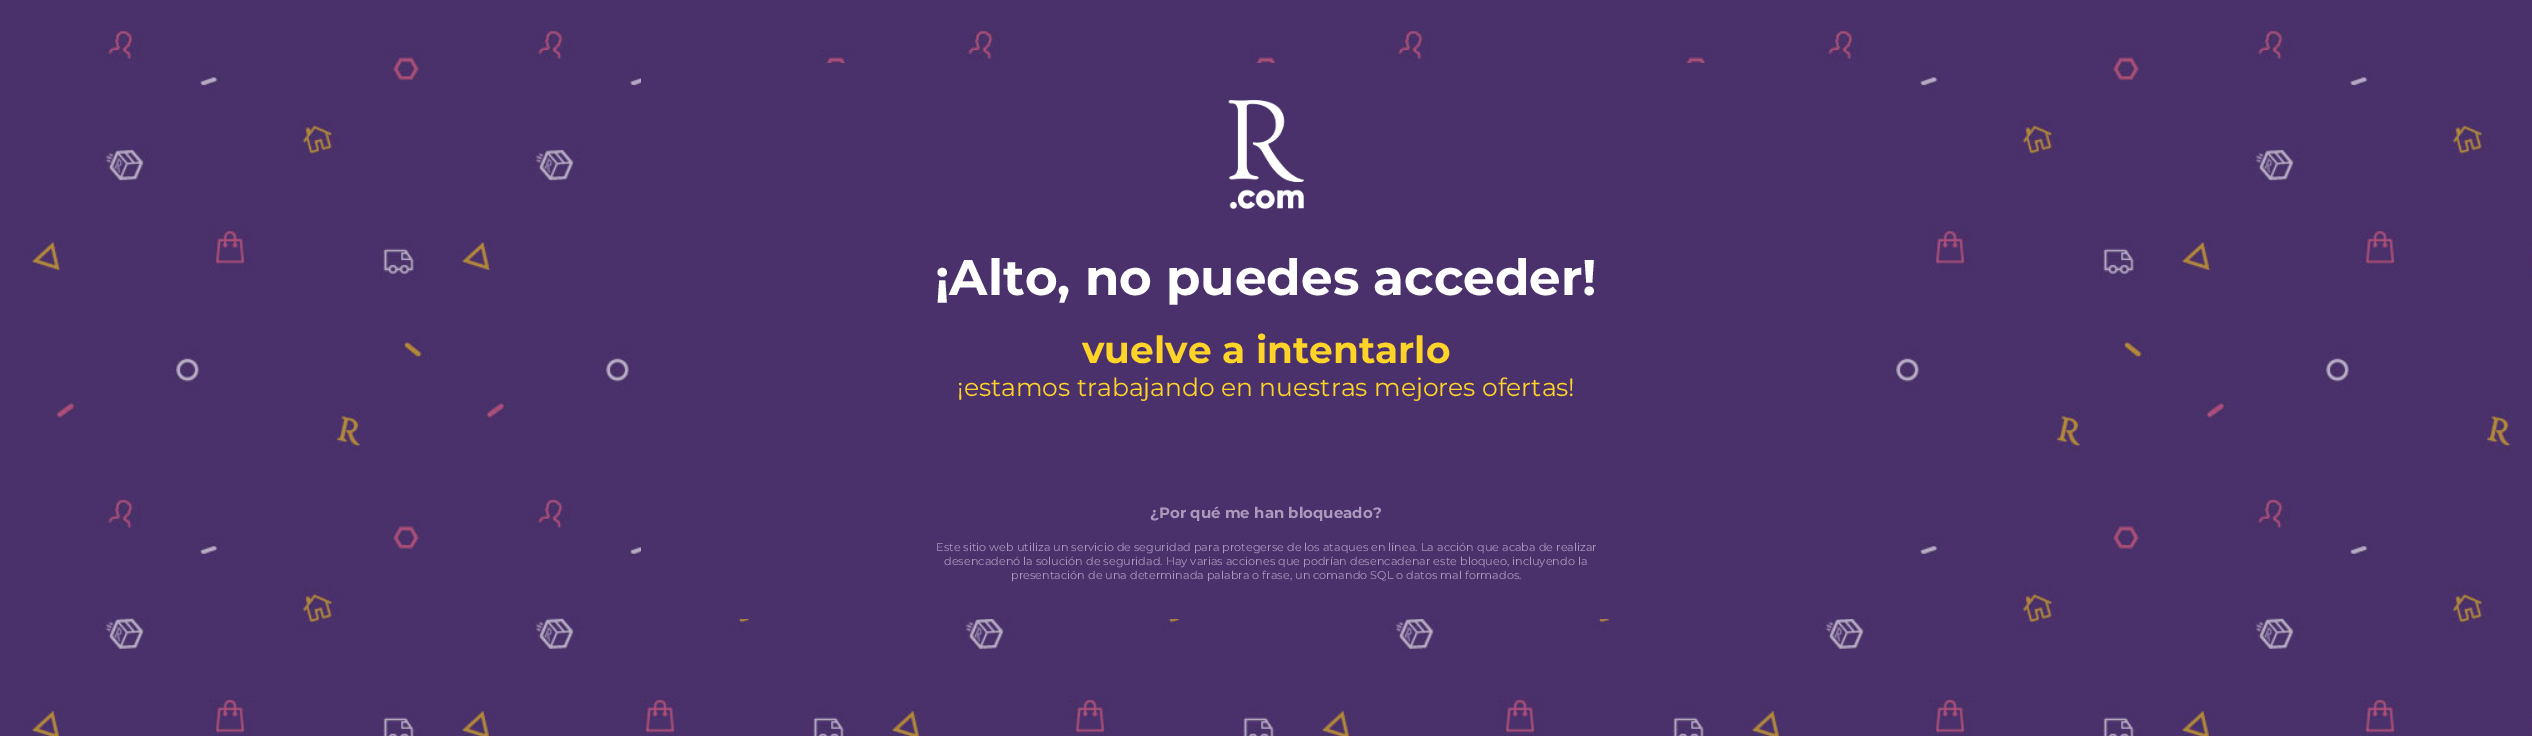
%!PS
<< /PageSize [2532 736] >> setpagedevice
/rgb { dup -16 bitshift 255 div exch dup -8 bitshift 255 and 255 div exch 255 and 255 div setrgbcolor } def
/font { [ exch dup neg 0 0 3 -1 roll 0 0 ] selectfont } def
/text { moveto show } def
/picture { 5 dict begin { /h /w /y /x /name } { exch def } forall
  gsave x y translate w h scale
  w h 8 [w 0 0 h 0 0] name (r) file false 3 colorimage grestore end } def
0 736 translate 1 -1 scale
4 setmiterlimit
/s1 { /Montserrat-Thin 50 font 16#FFFFFF rgb } def
/s2 { /Montserrat-Thin 37.5 font 16#FFD429 rgb } def
/s3 { /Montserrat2-Thin 25 font 16#FFD429 rgb } def
/s4 { /Montserrat-Thin 15 font 16#AC9ABD rgb } def
/s5 { /Montserrat2-Thin 11.25 font 16#AC9ABD rgb } def
16#FFFFFF rgb
0 0 2532 736 rectfill
(pic1.raw) 0 0 2532 736 picture
16#4A316B rgb
641 63 1250 556 rectfill
(pic2.raw) 1228 100 76 109 picture
s1
(¡Alto, no puedes acceder!) 935 295 text
s2
(vuelve a intentarlo) 1082 363 text
s3
(¡estamos trabajando en nuestras mejores ofertas!) 957 396 text
s4
(¿Por qué me han bloqueado?) 1150 518 text
s5
(Este sitio web utiliza un servicio de seguridad para protegerse de los ataques en línea. La acción que acaba de realizar) 936 551 text
(desencadenó la solución de seguridad. Hay varias acciones que podrían desencadenar este bloqueo, incluyendo la) 944 565 text
(presentación de una determinada palabra o frase, un comando SQL o datos mal formados.) 1011 579 text
showpage
